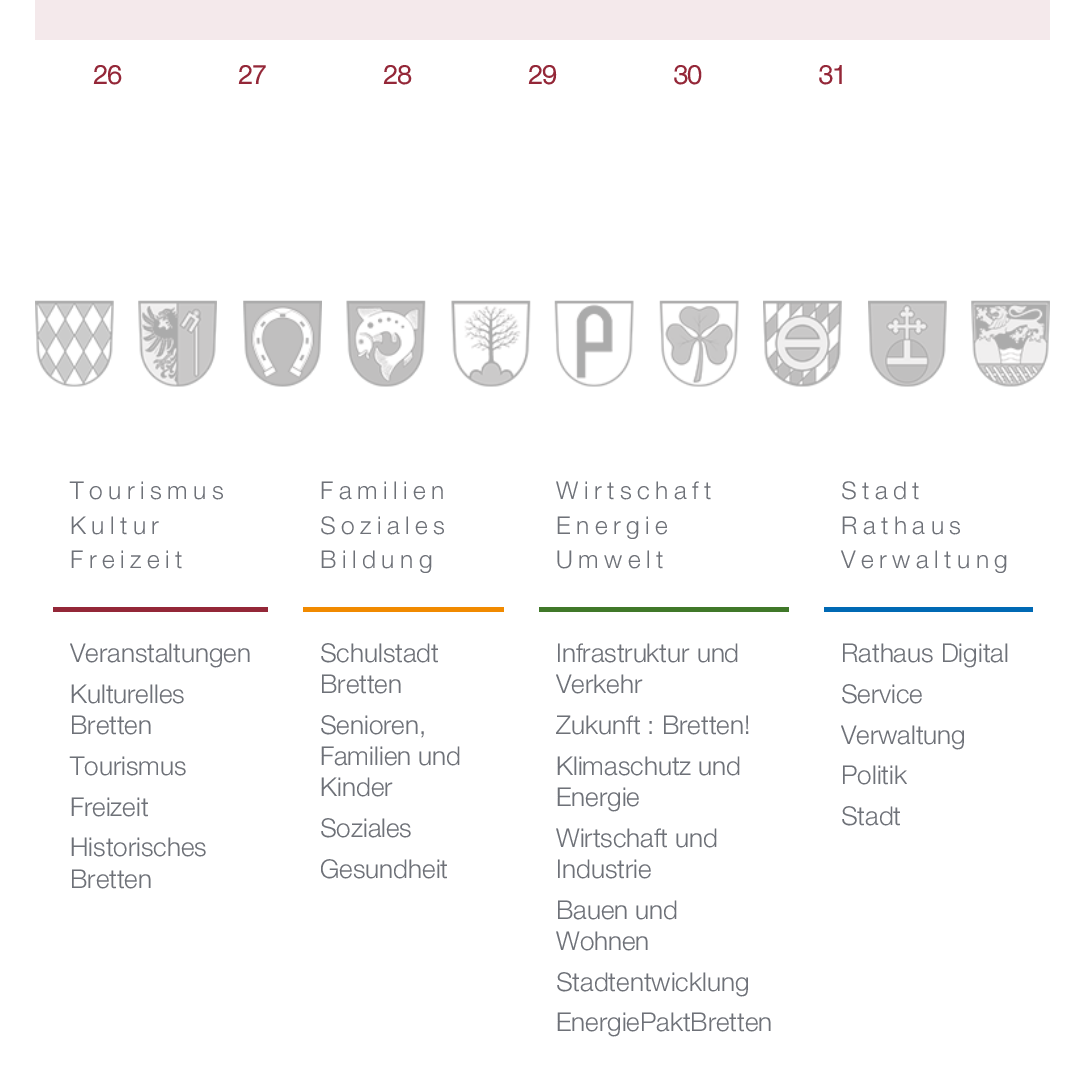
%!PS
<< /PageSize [1084 1067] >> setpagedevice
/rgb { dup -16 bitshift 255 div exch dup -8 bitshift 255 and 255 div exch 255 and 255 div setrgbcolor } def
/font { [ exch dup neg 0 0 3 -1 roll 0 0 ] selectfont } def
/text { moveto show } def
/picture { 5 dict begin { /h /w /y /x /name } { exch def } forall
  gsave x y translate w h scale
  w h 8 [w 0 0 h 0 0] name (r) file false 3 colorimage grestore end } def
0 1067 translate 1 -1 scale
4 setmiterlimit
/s1 { /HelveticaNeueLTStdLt-Bold 26 font 16#942738 rgb } def
/s2 { /HelveticaNeueLTStdLt-Light 26 font 16#6E7178 rgb } def
16#FFFFFF rgb
0 0 1084 1067 rectfill
16#F4E9EB rgb
35 0 1015 40 rectfill
s1
(26) 93 84 text
(27) 238 84 text
(28) 383 84 text
(29) 528 84 text
(30) 673 84 text
(31) 818 84 text
(pic1.raw) 35 300 79 87 picture
(pic2.raw) 138 300 79 87 picture
(pic3.raw) 243 300 79 87 picture
(pic4.raw) 346 300 80 87 picture
(pic5.raw) 451 300 80 87 picture
(pic6.raw) 554 300 80 87 picture
(pic7.raw) 659 300 80 87 picture
(pic8.raw) 763 300 79 87 picture
(pic9.raw) 868 300 79 87 picture
(pic10.raw) 971 300 79 87 picture
53 607 215 5 rectfill
/HelveticaNeueLTStdLt-Light 24.5 font
16#6E7178 rgb
70 499 moveto 5.5 0 (Tourismus) ashow
70 534 moveto 5.5 0 (Kultur) ashow
70 568 moveto 5.5 0 (Freizeit) ashow
s2
(Veranstaltungen) 70 662 text
(Kulturelles) 70 703 text
(Bretten) 70 734 text
(Tourismus) 70 775 text
(Freizeit) 70 816 text
(Historisches) 70 856 text
(Bretten) 70 888 text
16#F18A00 rgb
303 607 201 5 rectfill
/HelveticaNeueLTStdLt-Light 24.5 font
16#6E7178 rgb
320 499 moveto 5.5 0 (Familien) ashow
320 534 moveto 5.5 0 (Soziales) ashow
320 568 moveto 5.5 0 (Bildung) ashow
s2
(Schulstadt) 320 662 text
(Bretten) 320 693 text
(Senioren,) 320 734 text
(Familien und) 320 765 text
(Kinder) 320 796 text
(Soziales) 320 837 text
(Gesundheit) 320 878 text
16#407829 rgb
539 607 250 5 rectfill
/HelveticaNeueLTStdLt-Light 24.5 font
16#6E7178 rgb
556 499 moveto 5.5 0 (Wirtschaft) ashow
556 534 moveto 5.5 0 (Energie) ashow
556 568 moveto 5.5 0 (Umwelt) ashow
s2
(Infrastruktur und) 556 662 text
(Verkehr) 556 693 text
(Zukunft : Bretten!) 556 734 text
(Klimaschutz und) 556 775 text
(Energie) 556 806 text
(Wirtschaft und) 556 847 text
(Industrie) 556 878 text
(Bauen und) 556 919 text
(Wohnen) 556 950 text
(Stadtentwicklung) 556 991 text
(EnergiePaktBretten) 556 1031 text
16#0069B4 rgb
824 607 209 5 rectfill
/HelveticaNeueLTStdLt-Light 24.5 font
16#6E7178 rgb
841 499 moveto 5.5 0 (Stadt) ashow
841 534 moveto 5.5 0 (Rathaus) ashow
841 568 moveto 5.5 0 (Verwaltung) ashow
s2
(Rathaus Digital) 841 662 text
(Service) 841 703 text
(Verwaltung) 841 744 text
(Politik) 841 784 text
(Stadt) 841 825 text
showpage
